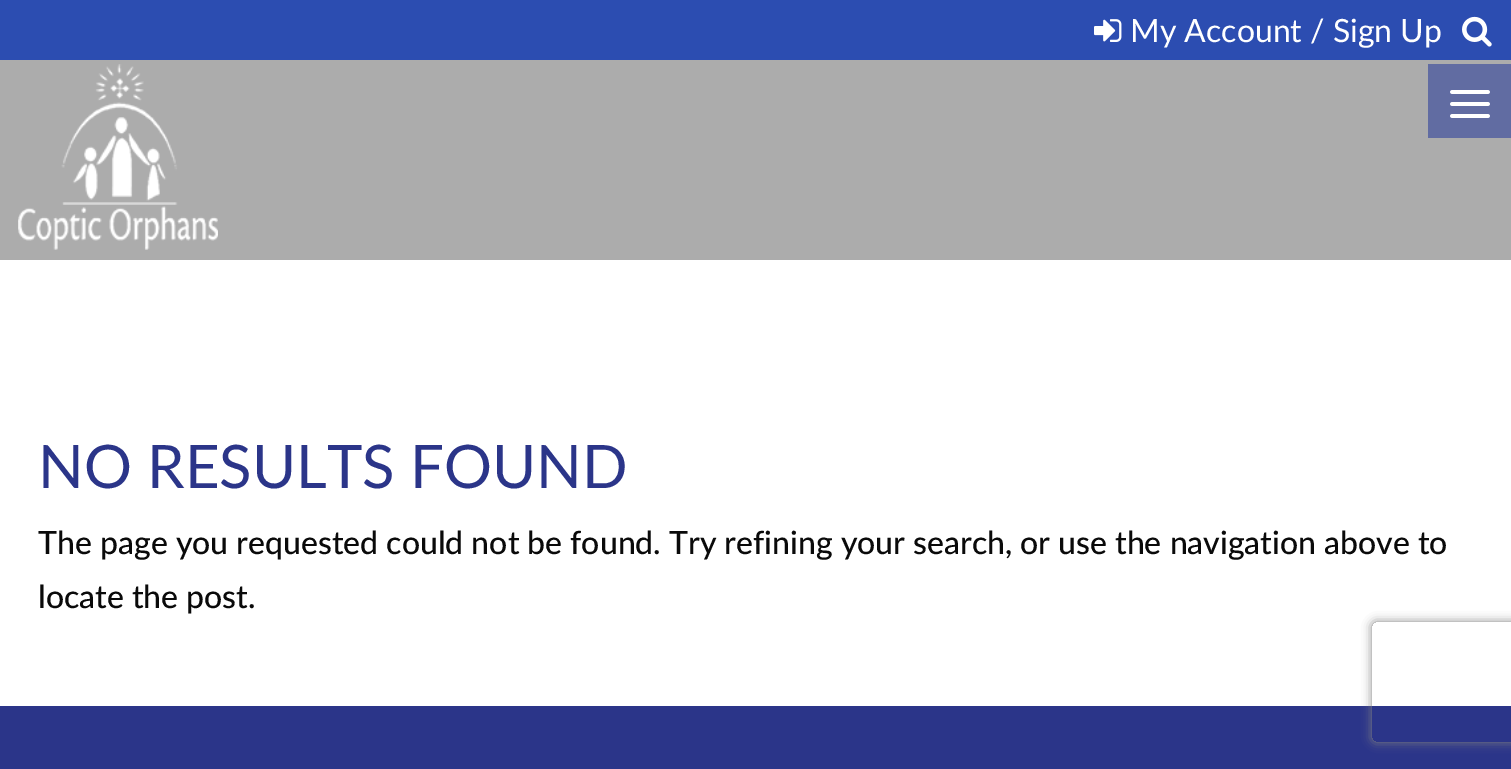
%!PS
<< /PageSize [1511 769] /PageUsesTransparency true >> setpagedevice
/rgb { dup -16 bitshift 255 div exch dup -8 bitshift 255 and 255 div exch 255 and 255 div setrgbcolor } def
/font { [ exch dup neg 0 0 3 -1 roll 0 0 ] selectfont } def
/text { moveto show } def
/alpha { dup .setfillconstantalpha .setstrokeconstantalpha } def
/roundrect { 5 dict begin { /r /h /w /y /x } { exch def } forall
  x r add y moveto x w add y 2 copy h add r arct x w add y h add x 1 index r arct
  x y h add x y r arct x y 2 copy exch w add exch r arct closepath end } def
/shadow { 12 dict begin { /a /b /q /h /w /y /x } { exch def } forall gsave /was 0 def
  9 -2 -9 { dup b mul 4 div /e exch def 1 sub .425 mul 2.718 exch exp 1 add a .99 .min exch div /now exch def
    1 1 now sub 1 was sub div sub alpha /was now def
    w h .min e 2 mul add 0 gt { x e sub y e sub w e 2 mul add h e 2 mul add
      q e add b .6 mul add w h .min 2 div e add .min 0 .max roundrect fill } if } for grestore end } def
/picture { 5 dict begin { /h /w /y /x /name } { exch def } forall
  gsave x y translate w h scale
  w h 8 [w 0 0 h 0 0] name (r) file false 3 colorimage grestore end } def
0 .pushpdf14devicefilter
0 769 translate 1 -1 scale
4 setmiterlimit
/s1 { /Lato-Regular 32 font 16#FFFFFF rgb } def
/s2 { /Lato-Regular 60 font 16#2B3589 rgb } def
/s3 { /Lato-Medium 32 font 16#0A0A0A rgb } def
16#FFFFFF rgb
0 0 1511 769 rectfill
16#2C4DB1 rgb
0 0 1511 60 rectfill
(pic1.raw) 1094 19 28 23 picture
s1
(My Account / Sign Up) 1130 42 text
(pic2.raw) 1462 16 30 31 picture
16#ACACAC rgb
0 60 1511 200 rectfill
(pic3.raw) 18 64 200 186 picture
16#616CA2 rgb
1428 64 83 74 rectfill
(pic4.raw) 1450 90 40 28 picture
s2
(NO RESULTS FOUND) 38 488 text
s3
(The page you requested could not be found. Try refining your search, or use the navigation above to) 38 554 text
(locate the post.) 38 608 text
16#2B3589 rgb
0 706 1511 63 rectfill
gsave
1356 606 moveto 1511 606 lineto 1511 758 lineto 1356 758 lineto closepath 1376 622 moveto 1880 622 lineto 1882 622 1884 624 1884 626 curveto 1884 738 lineto 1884 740 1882 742 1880 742 curveto 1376 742 lineto 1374 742 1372 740 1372 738 curveto 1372 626 lineto 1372 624 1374 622 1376 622 curveto closepath eoclip newpath
16#808080 rgb
1372 622 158 120 4 5 1 shadow
grestore
.poppdf14devicefilter showpage
